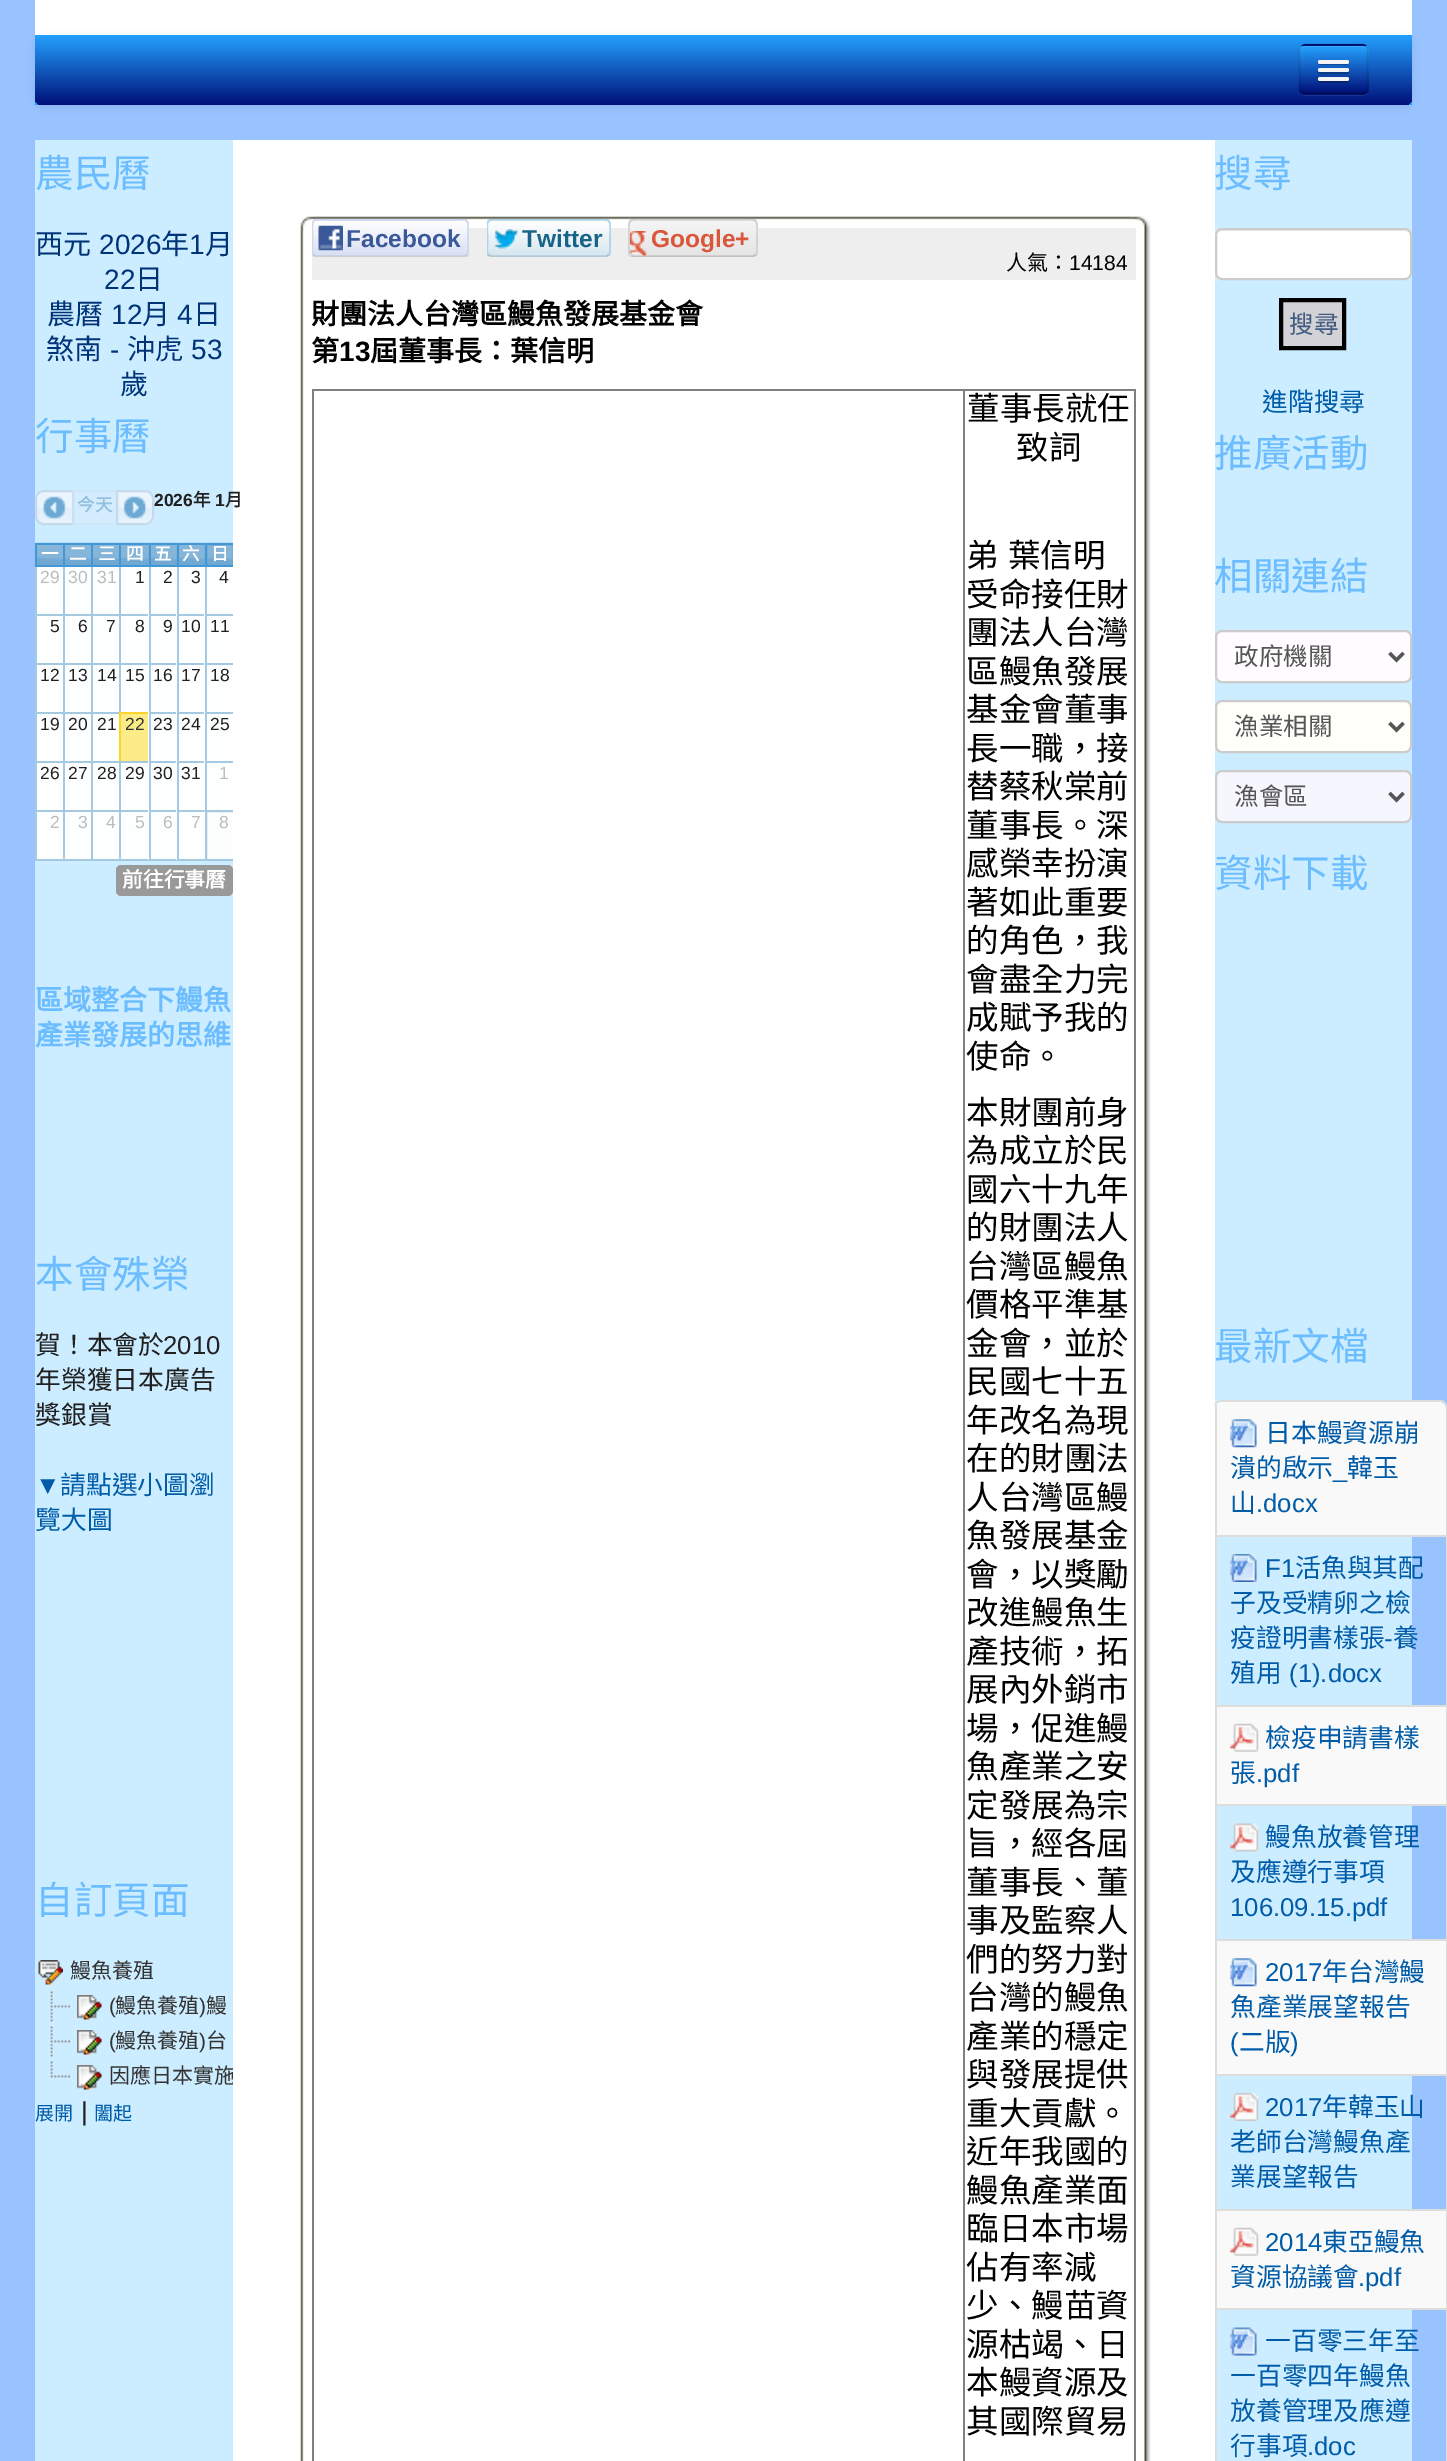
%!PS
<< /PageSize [1447 2461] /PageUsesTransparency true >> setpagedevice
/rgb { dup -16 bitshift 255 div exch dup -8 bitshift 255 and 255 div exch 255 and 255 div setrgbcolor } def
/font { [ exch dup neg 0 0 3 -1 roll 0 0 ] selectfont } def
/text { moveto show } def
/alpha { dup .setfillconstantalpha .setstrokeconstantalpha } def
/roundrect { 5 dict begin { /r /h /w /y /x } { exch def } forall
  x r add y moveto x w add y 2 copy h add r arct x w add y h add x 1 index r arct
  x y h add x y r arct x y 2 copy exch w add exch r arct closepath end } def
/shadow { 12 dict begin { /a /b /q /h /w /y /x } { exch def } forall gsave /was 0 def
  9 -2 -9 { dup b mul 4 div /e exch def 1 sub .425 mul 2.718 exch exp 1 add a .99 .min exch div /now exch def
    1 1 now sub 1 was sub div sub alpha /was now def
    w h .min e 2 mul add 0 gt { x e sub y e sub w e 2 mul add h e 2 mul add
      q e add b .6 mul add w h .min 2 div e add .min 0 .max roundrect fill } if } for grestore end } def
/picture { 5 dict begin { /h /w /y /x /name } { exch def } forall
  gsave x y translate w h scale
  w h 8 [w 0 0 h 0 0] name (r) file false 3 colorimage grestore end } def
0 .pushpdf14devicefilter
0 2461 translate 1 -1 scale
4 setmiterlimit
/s1 { /NotoSansCJKTC-Regular 38.5 font 16#6BBDFF rgb } def
/s2 { /NotoSansCJKTC-Regular 28 font 16#003377 rgb } def
/s3 { /LiberationSans-Regular 28 font 16#003377 rgb } def
/s4 { /NotoSansCJKTC-Bold 17.5 font 16#95C0DD rgb } def
/s5 { /LiberationSans-Bold 17.5 font 16#202020 rgb } def
/s6 { /NotoSansCJKTC-Bold 17.5 font 16#202020 rgb } def
/s7 { /NotoSansCJKTC-Bold 17.5 font 16#FFFFFF rgb } def
/s8 { /LiberationSans-Regular 17.5 font 16#BBBCBC rgb } def
/s9 { /LiberationSans-Regular 17.5 font 16#202020 rgb } def
/s10 { /LiberationSans-Regular 17.5 font 16#333333 rgb } def
/s11 { /NotoSansCJKTC-Bold 20.75 font 16#FFFFFF rgb } def
/s12 { /NotoSansCJKTC-Bold 28 font 16#6BBDFF rgb } def
/s13 { /NotoSansCJKTC-Regular 25.75 font 16#202020 rgb } def
/s14 { /LiberationSans-Regular 25.75 font 16#202020 rgb } def
/s15 { /LiberationSans-Regular 25.75 font 16#005CA8 rgb } def
/s16 { /NotoSansCJKTC-Regular 25.75 font 16#005CA8 rgb } def
/s17 { /NotoSansCJKTC-Regular 21 font 16#333333 rgb } def
/s18 { /LiberationSans-Regular 21 font 16#333333 rgb } def
/s19 { /NotoSansCJKTC-Regular 19 font 16#005CA8 rgb } def
/s20 { /LiberationSans-Bold 24.5 font 16#3B5998 rgb } def
/s21 { /LiberationSans-Bold 24.5 font 16#186487 rgb } def
/s22 { /LiberationSans-Bold 24.5 font 16#DA573B rgb } def
/s23 { /NotoSansCJKTC-Regular 21 font 16#000000 rgb } def
/s24 { /LiberationSans-Regular 21 font 16#000000 rgb } def
/s25 { /NotoSansCJKTC-Bold 28 font 16#000000 rgb } def
/s26 { /LiberationSans-Bold 28 font 16#000000 rgb } def
/s27 { /NotoSansCJKTC-Regular 32.5 font 16#000000 rgb } def
/s28 { /NotoSansCJKTC-Regular 24.5 font 16#405A80 rgb } def
/s29 { /NotoSansCJKTC-Regular 24.5 font 16#555555 rgb } def
16#98C3FF rgb
0 0 1447 2461 rectfill
16#FFFFFF rgb
35 0 1377 35 rectfill
16#24A1FF rgb
35 35 1377 70 rectfill
16#000000 rgb
35 37 1377 70 7 3.5 0.07 shadow
gsave 35 35 1377 70 7 roundrect clip newpath
<< /ShadingType 2 /ColorSpace /DeviceRGB /Coords [724 35 724 105] /Extend [true true] /Function << /FunctionType 2 /Domain [0 1] /C0 [0.141 0.631 1] /C1 [0 0.063 0.471] /N 1 >> >> shfill grestore
0.07 alpha
16#FFFFFF rgb
1299 90 moveto 1300 94 1303 96 1306 96 curveto 1362 96 lineto 1366 96 1369 93 1369 89 curveto 1369 53 lineto 1368 50 lineto 1368 81 lineto 1368 96 1366 94 1352 94 curveto 1315 94 lineto 1310 94 1302 96 1299 90 curveto closepath fill
1 alpha
16#001078 rgb
1299 44 70 51 7 roundrect fill
gsave
1299 44 70 51 7 roundrect clip newpath
gsave 1299 46 moveto 1369 46 lineto 1369 93 lineto 1299 93 lineto closepath clip newpath
<< /ShadingType 2 /ColorSpace /DeviceRGB /Coords [1334 46 1334 93] /Extend [true true] /Function << /FunctionType 2 /Domain [0 1] /C0 [0.141 0.631 1] /C1 [0 0.063 0.471] /N 1 >> >> shfill grestore
grestore
0.1 alpha
16#FFFFFF rgb
1306 47 moveto 1362 47 lineto 1364 47 1367 50 1367 52 curveto 1367 44 1358 46 1352 46 curveto 1314 46 lineto 1309 46 1300 44 1300 52 curveto 1300 50 1303 47 1306 47 curveto closepath fill
1 alpha
16#000C5A rgb
1.8 setlinewidth
1366 92 moveto 1364.5 93 1363 93.5 1361.5 93.5 curveto 1305.5 93.5 lineto 1304 93.5 1302.5 93 1301 92 curveto stroke
0.1 alpha
16#000000 rgb
1301 92 moveto 1300 90.5 1299.5 89 1299.5 87.5 curveto 1299.5 51 lineto 1299.5 49 1300 47.5 1301 46.5 curveto 1302.5 45.5 1304 44.5 1305.5 44.5 curveto 1361.5 44.5 lineto 1363 44.5 1364.5 45.5 1366 46.5 curveto 1367 47.5 1367.5 49 1367.5 51 curveto 1367.5 87.5 lineto 1367.5 89 1367 90.5 1366 92 curveto stroke
0.25 alpha
1318 62.5 moveto 1317 66 1323.5 65 1324.5 65 curveto 1342.5 65 lineto 1343.5 65 1350 66 1349 62.5 curveto 1347.5 63 lineto 1319.5 63 lineto closepath fill
1 alpha
16#F5F5F5 rgb
1318 60 31 4 2 roundrect fill
0.25 alpha
16#000000 rgb
1318 71 moveto 1316.5 75 1323.5 74 1324.5 74 curveto 1342.5 74 lineto 1343.5 74 1350.5 75 1349 71 curveto 1347.5 71.5 lineto 1319.5 71.5 lineto closepath fill
1 alpha
16#F5F5F5 rgb
1318 68 31 4 2 roundrect fill
0.25 alpha
16#000000 rgb
1318.5 80 moveto 1316 84 1324 83 1324.5 83 curveto 1342.5 83 lineto 1343 83 1351 84 1348.5 80 curveto 1347.5 80.5 lineto 1319.5 80.5 lineto closepath fill
1 alpha
16#F5F5F5 rgb
1318 77 31 4 2 roundrect fill
16#FFFFFF rgb
233 140 982 2321 rectfill
16#CCECFF rgb
35 140 198 2321 rectfill
s1
(農民曆) 35 187 text
s2
(西元) 35 254 text
s3
(2026) 99 254 text
s2
(年) 161 254 text
s3
(1) 189 254 text
s2
(月) 205 254 text
s3
(22) 104 289 text
s2
(日) 135 289 text
(農曆) 47 324 text
s3
(12) 111 324 text
s2
(月) 142 324 text
s3
(4) 177 324 text
s2
(日) 193 324 text
(煞南) 46 359 text
s3
(-) 110 359 text
s2
(沖虎) 127 359 text
s3
(53) 191 359 text
s2
(歲) 120 394 text
s1
(行事曆) 35 450 text
(pic1.raw) 35 490 37 35 picture
16#C5DBEC rgb
2 setlinewidth
44 491 moveto 73 491 lineto 73 524 lineto 44 524 lineto 39.5 524 36 520.5 36 516 curveto 36 499 lineto 36 494.5 39.5 491 44 491 curveto closepath stroke
(pic2.raw) 43 496 23 23 picture
0.35 alpha
16#DFEFFC rgb
72 490 44 35 rectfill
16#C5DBEC rgb
73 491 43 33 rectstroke
1 alpha
s4
(今天) 77 511 text
(pic3.raw) 115 490 39 35 picture
16#C5DBEC rgb
117 491 moveto 145 491 lineto 149.5 491 153 494.5 153 499 curveto 153 516 lineto 153 520.5 149.5 524 145 524 curveto 117 524 lineto closepath stroke
(pic4.raw) 123 496 23 23 picture
s5
(2026) 154 506 text
s6
(年) 193 506 text
s5
(1) 215 506 text
s6
(月) 225 506 text
(pic5.raw) 35 542 28 23 picture
16#4297D7 rgb
35 543 28 2 rectfill
35 565 114 2 rectfill
35 543 2 24 rectfill
s7
(一) 41 560 text
(pic5.raw) 63 542 28 23 picture
16#4297D7 rgb
63 543 28 2 rectfill
63 543 2 24 rectfill
s7
(二) 69 560 text
(pic5.raw) 91 542 28 23 picture
16#4297D7 rgb
91 543 28 2 rectfill
91 543 2 24 rectfill
s7
(三) 98 560 text
(pic6.raw) 119 542 30 23 picture
16#4297D7 rgb
119 543 30 2 rectfill
119 543 2 24 rectfill
s7
(四) 126 560 text
(pic7.raw) 148 542 29 25 picture
16#4297D7 rgb
149 543 28 2 rectfill
149 565 28 2 rectfill
149 543 2 24 rectfill
s7
(五) 154 560 text
(pic7.raw) 176 542 29 25 picture
16#4297D7 rgb
177 543 28 2 rectfill
177 565 28 2 rectfill
177 543 2 24 rectfill
s7
(六) 182 560 text
(pic8.raw) 204 542 29 25 picture
gsave
35 543 198 318 rectclip
16#4297D7 rgb
206 544 28 22 rectstroke
grestore
(日) 211 560 text
16#FDFEFE rgb
37 567 26 47 rectfill
16#A6C9E2 rgb
35 567 2 47 rectfill
s8
(29) 40 583 text
16#FDFEFE rgb
65 567 26 47 rectfill
16#A6C9E2 rgb
63 567 2 47 rectfill
s8
(30) 68 583 text
16#FDFEFE rgb
93 567 26 47 rectfill
16#A6C9E2 rgb
91 567 2 47 rectfill
s8
(31) 97 583 text
16#FDFEFE rgb
121 567 28 47 rectfill
16#A6C9E2 rgb
119 567 2 47 rectfill
s9
(1) 135 583 text
16#FDFEFE rgb
151 567 26 47 rectfill
16#A6C9E2 rgb
149 567 2 47 rectfill
s9
(2) 163 583 text
16#FDFEFE rgb
179 567 26 47 rectfill
16#A6C9E2 rgb
177 567 2 47 rectfill
s9
(3) 191 583 text
16#FDFEFE rgb
207 567 26 47 rectfill
16#A6C9E2 rgb
205 567 2 47 rectfill
s9
(4) 219 583 text
16#FDFEFE rgb
37 616 26 47 rectfill
16#A6C9E2 rgb
35 614 114 2 rectfill
35 614 2 49 rectfill
s9
(5) 50 632 text
16#FDFEFE rgb
65 616 26 47 rectfill
16#A6C9E2 rgb
63 614 2 49 rectfill
s9
(6) 78 632 text
16#FDFEFE rgb
93 616 26 47 rectfill
16#A6C9E2 rgb
91 614 2 49 rectfill
s9
(7) 106 632 text
16#FDFEFE rgb
121 616 27 47 rectfill
16#A6C9E2 rgb
119 614 2 49 rectfill
s9
(8) 135 632 text
16#FDFEFE rgb
148 614 28 49 rectfill
16#A6C9E2 rgb
149 614 28 2 rectfill
149 614 2 49 rectfill
s9
(9) 163 632 text
16#FDFEFE rgb
176 614 28 49 rectfill
16#A6C9E2 rgb
177 614 28 2 rectfill
177 614 2 49 rectfill
s9
(10) 181 632 text
16#FDFEFE rgb
204 614 29 49 rectfill
16#A6C9E2 rgb
205 614 28 2 rectfill
205 614 2 49 rectfill
s9
(11) 210 632 text
16#FDFEFE rgb
37 665 26 47 rectfill
16#A6C9E2 rgb
35 663 114 2 rectfill
35 663 2 49 rectfill
s9
(12) 40 681 text
16#FDFEFE rgb
65 665 26 47 rectfill
16#A6C9E2 rgb
63 663 2 49 rectfill
s9
(13) 68 681 text
16#FDFEFE rgb
93 665 26 47 rectfill
16#A6C9E2 rgb
91 663 2 49 rectfill
s9
(14) 97 681 text
16#FDFEFE rgb
121 665 27 47 rectfill
16#A6C9E2 rgb
119 663 2 49 rectfill
s9
(15) 125 681 text
16#FDFEFE rgb
148 663 28 49 rectfill
16#A6C9E2 rgb
149 663 28 2 rectfill
149 663 2 49 rectfill
s9
(16) 153 681 text
16#FDFEFE rgb
176 663 28 49 rectfill
16#A6C9E2 rgb
177 663 28 2 rectfill
177 663 2 49 rectfill
s9
(17) 181 681 text
16#FDFEFE rgb
204 663 29 49 rectfill
16#A6C9E2 rgb
205 663 28 2 rectfill
205 663 2 49 rectfill
s9
(18) 210 681 text
16#FDFEFE rgb
37 714 26 47 rectfill
16#A6C9E2 rgb
35 712 84 2 rectfill
35 712 2 49 rectfill
s9
(19) 40 730 text
16#FDFEFE rgb
65 714 26 47 rectfill
16#A6C9E2 rgb
63 712 2 49 rectfill
s9
(20) 68 730 text
16#FDFEFE rgb
93 714 26 47 rectfill
16#A6C9E2 rgb
91 712 2 49 rectfill
s9
(21) 97 730 text
16#FBEC88 rgb
121 714 27 47 rectfill
16#FAD42E rgb
119 712 30 2 rectfill
119 712 2 49 rectfill
s10
(22) 125 730 text
16#FDFEFE rgb
148 712 28 49 rectfill
16#A6C9E2 rgb
149 712 28 2 rectfill
149 712 2 49 rectfill
s9
(23) 153 730 text
16#FDFEFE rgb
176 712 28 49 rectfill
16#A6C9E2 rgb
177 712 28 2 rectfill
177 712 2 49 rectfill
s9
(24) 181 730 text
16#FDFEFE rgb
204 712 29 49 rectfill
16#A6C9E2 rgb
205 712 28 2 rectfill
205 712 2 49 rectfill
s9
(25) 210 730 text
16#FDFEFE rgb
37 763 26 47 rectfill
16#A6C9E2 rgb
35 761 114 2 rectfill
35 761 2 49 rectfill
s9
(26) 40 779 text
16#FDFEFE rgb
65 763 26 47 rectfill
16#A6C9E2 rgb
63 761 2 49 rectfill
s9
(27) 68 779 text
16#FDFEFE rgb
93 763 26 47 rectfill
16#A6C9E2 rgb
91 761 2 49 rectfill
s9
(28) 97 779 text
16#FDFEFE rgb
121 763 27 47 rectfill
16#A6C9E2 rgb
119 761 2 49 rectfill
s9
(29) 125 779 text
16#FDFEFE rgb
148 761 28 49 rectfill
16#A6C9E2 rgb
149 761 28 2 rectfill
149 761 2 49 rectfill
s9
(30) 153 779 text
16#FDFEFE rgb
176 761 28 49 rectfill
16#A6C9E2 rgb
177 761 28 2 rectfill
177 761 2 49 rectfill
s9
(31) 181 779 text
16#FDFEFE rgb
204 761 29 49 rectfill
16#A6C9E2 rgb
205 761 28 2 rectfill
205 761 2 49 rectfill
s8
(1) 219 779 text
16#FDFEFE rgb
37 812 26 47 rectfill
16#A6C9E2 rgb
35 810 114 2 rectfill
35 859 114 2 rectfill
35 810 2 51 rectfill
s8
(2) 50 828 text
16#FDFEFE rgb
65 812 26 47 rectfill
16#A6C9E2 rgb
63 810 2 51 rectfill
s8
(3) 78 828 text
16#FDFEFE rgb
93 812 26 47 rectfill
16#A6C9E2 rgb
91 810 2 51 rectfill
s8
(4) 106 828 text
16#FDFEFE rgb
121 812 27 47 rectfill
16#A6C9E2 rgb
119 810 2 51 rectfill
s8
(5) 135 828 text
16#FDFEFE rgb
148 810 28 50 rectfill
16#A6C9E2 rgb
149 810 28 2 rectfill
149 859 28 2 rectfill
149 810 2 51 rectfill
s8
(6) 163 828 text
16#FDFEFE rgb
176 810 29 50 rectfill
16#A6C9E2 rgb
177 810 28 2 rectfill
177 859 28 2 rectfill
177 810 2 51 rectfill
s8
(7) 191 828 text
16#FCFDFD rgb
207 812 26 47 rectfill
(pic9.raw) 204 810 1 50 picture
gsave
35 543 198 318 rectclip
16#A6C9E2 rgb
206 811 28 49 rectstroke
grestore
s8
(8) 219 828 text
16#999999 rgb
116 865 117 31 5 roundrect fill
s11
(前往行事曆) 122 887 text
s12
(區域整合下鰻魚) 35 1010 text
(產業發展的思維) 35 1045 text
s1
(本會殊榮) 35 1288 text
s13
(賀！本會於) 35 1354 text
s14
(2010) 163 1354 text
s13
(年榮獲日本廣告) 35 1389 text
(獎銀賞) 35 1424 text
s15
(▼) 35 1494 text
s16
(請點選小圖瀏) 60 1494 text
(覽大圖) 35 1529 text
s1
(自訂頁面) 35 1914 text
(pic10.raw) 38 1960 25 25 picture
s17
(鰻魚養殖) 70 1978 text
(pic11.raw) 50 1991 20 31 picture
(pic12.raw) 77 1995 25 25 picture
s18
(\() 109 2013 text
s17
(鰻魚養殖) 115 2013 text
s18
(\)) 199 2013 text
s17
(鰻) 206 2013 text
(pic13.raw) 50 2026 20 31 picture
(pic14.raw) 77 2030 25 25 picture
s18
(\() 109 2048 text
s17
(鰻魚養殖) 115 2048 text
s18
(\)) 199 2048 text
s17
(台) 206 2048 text
(pic15.raw) 50 2061 20 17 picture
(pic14.raw) 77 2065 25 25 picture
gsave
35 1988 198 105 rectclip
(因應日本實施) 109 2083 text
grestore
s19
(展開) 35 2120 text
s14
(|) 81 2120 text
s19
(闔起) 94 2120 text
(pic16.raw) 300 216 15 15 picture
(pic18.raw) 1132 216 19 15 picture
(pic17.raw) 315 216 818 4 picture
(pic19.raw) 300 231 4 2230 picture
16#EEEEEE rgb
312 228 824 52 rectfill
gsave
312 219 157 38 rectclip
16#000000 rgb
312 221 157 38 5 1 0.05 shadow
grestore
gsave
312 219 157 38 5 roundrect clip newpath
gsave 312 219 moveto 469 219 lineto 469 221 lineto 312 221 lineto closepath clip newpath
<< /ShadingType 2 /ColorSpace /DeviceRGB /Coords [390 186 390 221] /Extend [true true] /Function << /FunctionType 2 /Domain [0 1] /C0 [1 1 1] /C1 [0.847 0.871 0.957] /N 1 >> >> shfill grestore
gsave 312 221 moveto 469 221 lineto 469 256 lineto 312 256 lineto closepath clip newpath
<< /ShadingType 2 /ColorSpace /DeviceRGB /Coords [390 221 390 256] /Extend [true true] /Function << /FunctionType 2 /Domain [0 1] /C0 [1 1 1] /C1 [0.847 0.871 0.957] /N 1 >> >> shfill grestore
gsave 312 256 moveto 469 256 lineto 469 257 lineto 312 257 lineto closepath clip newpath
<< /ShadingType 2 /ColorSpace /DeviceRGB /Coords [390 256 390 291] /Extend [true true] /Function << /FunctionType 2 /Domain [0 1] /C0 [1 1 1] /C1 [0.847 0.871 0.957] /N 1 >> >> shfill grestore
grestore
gsave
312 219 157 38 rectclip
0.8 alpha
16#BDC2CB rgb
1.8 setlinewidth
467 255 moveto 466 256 465 256.5 464 256.5 curveto 317 256.5 lineto 315.5 256.5 314.5 256 313.5 255 curveto stroke
16#CAD4E7 rgb
313.5 255 moveto 311 252.5 312.5 245.5 312.5 242.5 curveto 312.5 213.5 308 219.5 341 219.5 curveto 439 219.5 lineto 472.5 219.5 468 213.5 468 242.5 curveto 468 245.5 469.5 252.5 467 255 curveto stroke
grestore
(pic20.raw) 318 225 25 26 picture
s20
(Facebook) 346 247 text
gsave
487 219 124 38 rectclip
16#000000 rgb
487 221 124 38 5 1 0.05 shadow
grestore
gsave
487 219 124 38 5 roundrect clip newpath
gsave 487 219 moveto 611 219 lineto 611 221 lineto 487 221 lineto closepath clip newpath
<< /ShadingType 2 /ColorSpace /DeviceRGB /Coords [549 186 549 221] /Extend [true true] /Function << /FunctionType 2 /Domain [0 1] /C0 [1 1 1] /C1 [0.835 0.902 0.937] /N 1 >> >> shfill grestore
gsave 487 221 moveto 611 221 lineto 611 256 lineto 487 256 lineto closepath clip newpath
<< /ShadingType 2 /ColorSpace /DeviceRGB /Coords [549 221 549 256] /Extend [true true] /Function << /FunctionType 2 /Domain [0 1] /C0 [1 1 1] /C1 [0.835 0.902 0.937] /N 1 >> >> shfill grestore
gsave 487 256 moveto 611 256 lineto 611 257 lineto 487 257 lineto closepath clip newpath
<< /ShadingType 2 /ColorSpace /DeviceRGB /Coords [549 256 549 291] /Extend [true true] /Function << /FunctionType 2 /Domain [0 1] /C0 [1 1 1] /C1 [0.835 0.902 0.937] /N 1 >> >> shfill grestore
grestore
gsave
487 219 124 38 rectclip
0.8 alpha
16#9EBACC rgb
1.8 setlinewidth
608.5 255 moveto 606 256.5 lineto 510.5 256.5 lineto 492 256.5 lineto 488.5 255 lineto stroke
16#A4CCE5 rgb
488.5 255 moveto 486 252.5 487.5 245.5 487.5 242.5 curveto 487.5 215.5 482.5 219.5 510.5 219.5 curveto 586.5 219.5 lineto 614.5 219.5 610 215.5 610 242.5 curveto 610 245.5 611.5 252.5 608.5 255 curveto stroke
grestore
(pic21.raw) 493 229 25 20 picture
s21
(Twitter) 522 247 text
gsave
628 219 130 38 rectclip
16#000000 rgb
628 221 130 38 5 1 0.05 shadow
grestore
gsave
628 219 130 38 5 roundrect clip newpath
gsave 628 219 moveto 758 219 lineto 758 221 lineto 628 221 lineto closepath clip newpath
<< /ShadingType 2 /ColorSpace /DeviceRGB /Coords [693 186 693 221] /Extend [true true] /Function << /FunctionType 2 /Domain [0 1] /C0 [0.961 0.961 0.961] /C1 [0.894 0.894 0.894] /N 1 >> >> shfill grestore
gsave 628 221 moveto 758 221 lineto 758 256 lineto 628 256 lineto closepath clip newpath
<< /ShadingType 2 /ColorSpace /DeviceRGB /Coords [693 221 693 256] /Extend [true true] /Function << /FunctionType 2 /Domain [0 1] /C0 [0.961 0.961 0.961] /C1 [0.894 0.894 0.894] /N 1 >> >> shfill grestore
gsave 628 256 moveto 758 256 lineto 758 257 lineto 628 257 lineto closepath clip newpath
<< /ShadingType 2 /ColorSpace /DeviceRGB /Coords [693 256 693 291] /Extend [true true] /Function << /FunctionType 2 /Domain [0 1] /C0 [0.961 0.961 0.961] /C1 [0.894 0.894 0.894] /N 1 >> >> shfill grestore
grestore
gsave
628 219 130 38 rectclip
0.8 alpha
16#B3B3B3 rgb
1.8 setlinewidth
755.5 255 moveto 753 256.5 lineto 653.5 256.5 lineto 633.5 256.5 lineto 630.5 255 lineto stroke
16#CCCCCC rgb
630.5 255 moveto 627.5 252.5 629 245.5 629 242.5 curveto 629 215.5 624.5 219.5 653.5 219.5 curveto 732.5 219.5 lineto 761.5 219.5 757 215.5 757 242.5 curveto 757 245.5 758.5 252.5 755.5 255 curveto stroke
grestore
(pic22.raw) 630 231 18 25 picture
s22
(Google+) 651 247 text
s23
(人氣：) 1006 270 text
s24
(14184) 1069 270 text
s25
(財團法人台灣區鰻魚發展基金會) 311 324 text
(第) 311 361 text
s26
(13) 339 361 text
s25
(屆董事長：葉信明) 370 361 text
16#808080 rgb
312 389 824 2 rectfill
1134 389 2 2072 rectfill
312 389 2 2072 rectfill
963 389 2 2072 rectfill
s27
(董事長就任) 967 420 text
(致詞) 1016 459 text
966 567 moveto 2 0 32 (弟 葉信明) widthshow
(受命接任財) 966 606 text
(團法人台灣) 966 644 text
(區鰻魚發展) 966 683 text
(基金會董事) 966 721 text
(長一職，接) 966 760 text
(替蔡秋棠前) 966 798 text
(董事長。深) 966 837 text
(感榮幸扮演) 966 875 text
(著如此重要) 966 914 text
(的角色，我) 966 952 text
(會盡全力完) 966 991 text
(成賦予我的) 966 1029 text
(使命。) 966 1068 text
(本財團前身) 966 1124 text
(為成立於民) 966 1162 text
(國六十九年) 966 1201 text
(的財團法人) 966 1239 text
(台灣區鰻魚) 966 1278 text
(價格平準基) 966 1316 text
(金會，並於) 966 1355 text
(民國七十五) 966 1393 text
(年改名為現) 966 1432 text
(在的財團法) 966 1470 text
(人台灣區鰻) 966 1509 text
(魚發展基金) 966 1547 text
(會，以獎勵) 966 1586 text
(改進鰻魚生) 966 1624 text
(產技術，拓) 966 1663 text
(展內外銷市) 966 1701 text
(場，促進鰻) 966 1740 text
(魚產業之安) 966 1778 text
(定發展為宗) 966 1817 text
(旨，經各屆) 966 1855 text
(董事長、董) 966 1894 text
(事及監察人) 966 1932 text
(們的努力對) 966 1971 text
(台灣的鰻魚) 966 2009 text
(產業的穩定) 966 2048 text
(與發展提供) 966 2086 text
(重大貢獻。) 966 2125 text
(近年我國的) 966 2163 text
(鰻魚產業面) 966 2202 text
(臨日本市場) 966 2240 text
(佔有率減) 966 2279 text
(少、鰻苗資) 966 2317 text
(源枯竭、日) 966 2356 text
(本鰻資源及) 966 2394 text
(其國際貿易) 966 2433 text
(pic23.raw) 1144 231 7 2230 picture
16#CCECFF rgb
1215 140 197 2321 rectfill
s1
(搜尋) 1214 187 text
16#FFFFFF rgb
1215 228 197 52 7 roundrect fill
16#ECECEC rgb
1222 231 moveto 1405 231 lineto 1408 231 1410 233 1410 236 curveto 1410 276 lineto 1411 275 1411 274 1411 273 curveto 1411 234 lineto 1411 231 1409 229 1406 229 curveto 1221 229 lineto 1218 229 1216 231 1216 234 curveto 1216 236 lineto 1216 233 1219 231 1222 231 curveto closepath fill
16#CCCCCC rgb
1216 229 195 50 6 roundrect stroke
16#D3D2D6 rgb
1281 300 moveto 1344 300 lineto 1344 348 lineto 1281 348 lineto closepath gsave fill grestore
16#000000 rgb
4 setlinewidth
stroke
s28
(搜尋) 1289 333 text
s16
(進階搜尋) 1262 411 text
s1
(推廣活動) 1214 467 text
(相關連結) 1214 590 text
16#FFFCFF rgb
1216 631 195 51 6 roundrect gsave fill grestore
16#CCCCCC rgb
2 setlinewidth
stroke
16#555555 rgb
3.5 setlinewidth
1389.5 653 moveto 1396.5 660 lineto 1403.5 653 lineto stroke
s29
(政府機關) 1234 665 text
16#FFFFF9 rgb
1216 701 195 51 6 roundrect gsave fill grestore
16#CCCCCC rgb
2 setlinewidth
stroke
16#555555 rgb
3.5 setlinewidth
1389.5 723 moveto 1396.5 730 lineto 1403.5 723 lineto stroke
(漁業相關) 1234 735 text
16#F6F6FF rgb
1216 771 195 51 6 roundrect gsave fill grestore
16#CCCCCC rgb
2 setlinewidth
stroke
16#555555 rgb
3.5 setlinewidth
1389.5 793 moveto 1396.5 800 lineto 1403.5 793 lineto stroke
(漁會區) 1234 805 text
s1
(資料下載) 1214 887 text
(最新文檔) 1214 1360 text
16#DDDDDD rgb
1222 1400 moveto 1440 1400 lineto 1444 1400 1447 1403 1447 1407 curveto 1447 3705 lineto 1447 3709 1444 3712 1440 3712 curveto 1222 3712 lineto 1218 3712 1214 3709 1214 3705 curveto 1214 1407 lineto 1214 1403 1218 1400 1222 1400 curveto closepath 1222 1402 moveto 1440 1402 lineto 1443 1402 1446 1404 1446 1407 curveto 1446 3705 lineto 1446 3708 1443 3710 1440 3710 curveto 1222 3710 lineto 1218 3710 1214 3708 1214 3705 curveto 1214 1407 lineto 1214 1404 1218 1402 1222 1402 curveto closepath eofill
16#F9F9F9 rgb
1222 1402 moveto 1439 1402 lineto 1443 1402 1446 1405 1446 1409 curveto 1446 1535 lineto 1215 1535 lineto 1215 1409 lineto 1215 1405 1218 1402 1222 1402 curveto closepath fill
16#DDDDDD rgb
1215 1405 2 130 rectfill
(pic24.raw) 1230 1419 27 29 picture
s16
(日本鰻資源崩) 1265 1442 text
(潰的啟示) 1230 1477 text
(韓玉) 1347 1477 text
s15
(_) 1333 1477 text
s16
(山) 1230 1512 text
s15
(.docx) 1256 1512 text
16#DDDDDD rgb
1215 1535 231 2 rectfill
1215 1535 2 170 rectfill
(pic25.raw) 1230 1554 27 28 picture
s15
(F1) 1265 1577 text
s16
(活魚與其配) 1295 1577 text
(子及受精卵之檢) 1230 1612 text
(疫證明書樣張) 1230 1647 text
s15
(-) 1384 1647 text
s16
(養) 1393 1647 text
(殖用) 1230 1682 text
s15
(\(1\).docx) 1289 1682 text
16#F9F9F9 rgb
1217 1707 229 97 rectfill
16#DDDDDD rgb
1215 1705 231 2 rectfill
1215 1705 2 99 rectfill
(pic26.raw) 1230 1723 29 29 picture
s16
(檢疫申請書樣) 1265 1747 text
(張) 1230 1782 text
s15
(.pdf) 1256 1782 text
16#DDDDDD rgb
1215 1804 231 2 rectfill
1215 1804 2 135 rectfill
(pic27.raw) 1230 1823 29 29 picture
s16
(鰻魚放養管理) 1265 1846 text
(及應遵行事項) 1230 1881 text
s15
(106.09.15.pdf) 1230 1916 text
16#F9F9F9 rgb
1217 1941 229 133 rectfill
16#DDDDDD rgb
1215 1939 231 2 rectfill
1215 1939 2 135 rectfill
(pic24.raw) 1230 1958 27 29 picture
s15
(2017) 1265 1981 text
s16
(年台灣鰻) 1322 1981 text
(魚產業展望報告) 1230 2016 text
s15
(\() 1230 2051 text
s16
(二版) 1239 2051 text
s15
(\)) 1290 2051 text
16#DDDDDD rgb
1215 2074 231 2 rectfill
1215 2074 2 135 rectfill
(pic28.raw) 1230 2093 29 28 picture
s15
(2017) 1265 2116 text
s16
(年韓玉山) 1322 2116 text
(老師台灣鰻魚產) 1230 2151 text
(業展望報告) 1230 2186 text
16#F9F9F9 rgb
1217 2211 229 97 rectfill
16#DDDDDD rgb
1215 2209 231 2 rectfill
1215 2209 2 99 rectfill
(pic26.raw) 1230 2227 29 29 picture
s15
(2014) 1265 2251 text
s16
(東亞鰻魚) 1322 2251 text
(資源協議會) 1230 2286 text
s15
(.pdf) 1358 2286 text
16#DDDDDD rgb
1215 2308 231 2 rectfill
1215 2308 2 153 rectfill
(pic29.raw) 1230 2327 27 29 picture
s16
(一百零三年至) 1265 2350 text
(一百零四年鰻魚) 1230 2385 text
(放養管理及應遵) 1230 2420 text
(行事項) 1230 2455 text
s15
(.doc) 1307 2455 text
.poppdf14devicefilter showpage
